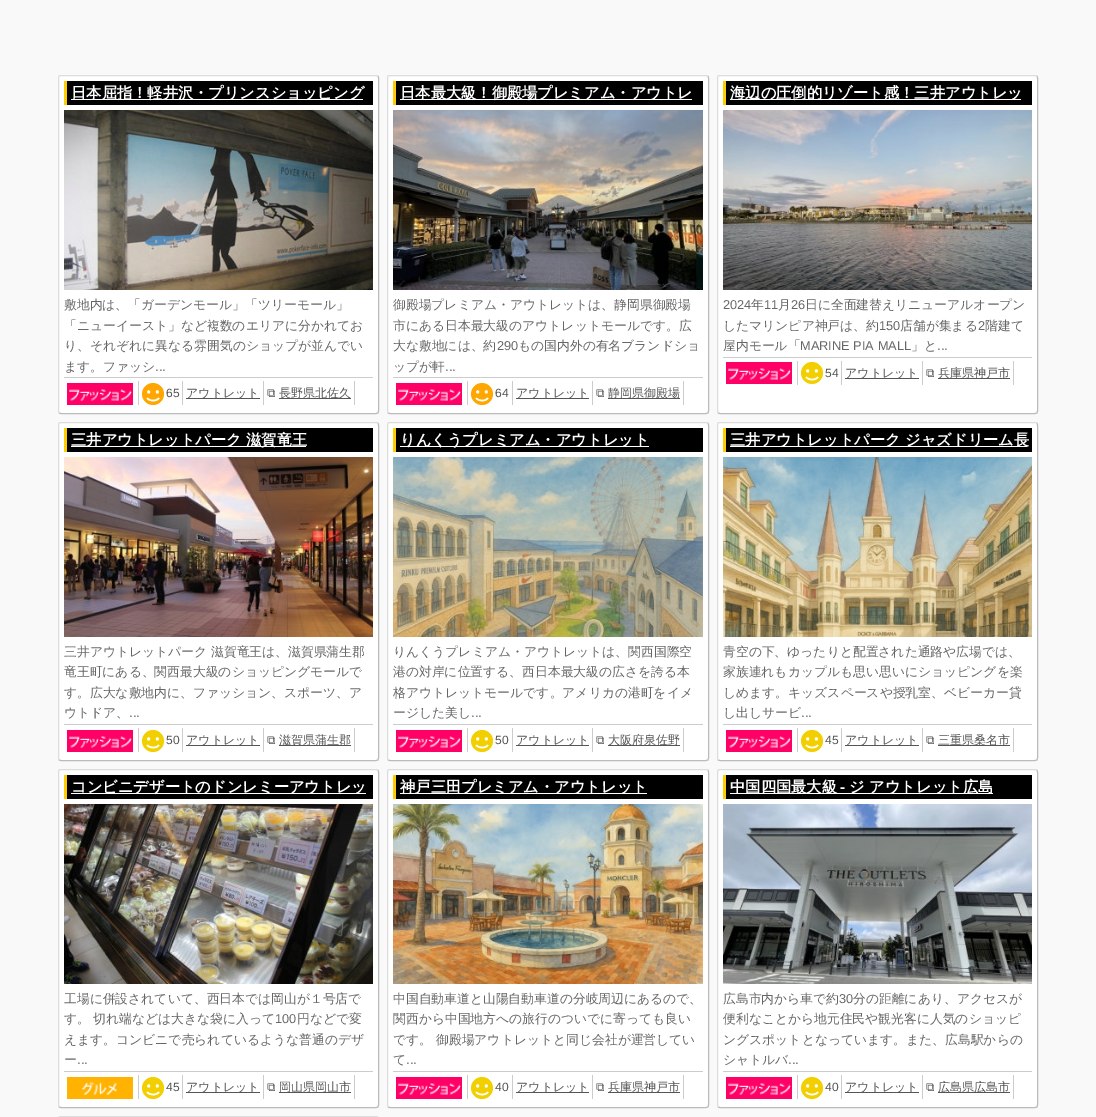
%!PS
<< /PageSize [1096 1117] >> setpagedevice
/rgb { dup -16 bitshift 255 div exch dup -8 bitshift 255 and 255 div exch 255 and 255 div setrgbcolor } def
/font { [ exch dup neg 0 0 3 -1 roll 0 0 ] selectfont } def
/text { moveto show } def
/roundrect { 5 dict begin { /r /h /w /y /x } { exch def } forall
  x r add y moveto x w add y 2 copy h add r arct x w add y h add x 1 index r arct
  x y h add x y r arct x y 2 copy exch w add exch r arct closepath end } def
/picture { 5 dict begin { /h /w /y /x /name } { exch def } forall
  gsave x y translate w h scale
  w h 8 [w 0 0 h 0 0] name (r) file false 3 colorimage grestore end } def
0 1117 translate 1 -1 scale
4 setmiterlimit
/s1 { /WenQuanYiZenHei-Bold 15.25 font 16#FFFFFF rgb } def
/s2 { /WenQuanYiZenHei-Medium 12.8 font 16#666666 rgb } def
/s3 { /LiberationSans-Regular 12.8 font 16#666666 rgb } def
/s4 { /LiberationSans-Regular 12 font 16#555555 rgb } def
/s5 { /WenQuanYiZenHei-Medium 12 font 16#555555 rgb } def
/s6 { /FreeSerif-Regular 12 font 16#555555 rgb } def
/s7 { /LiberationSans-Bold 15.25 font 16#FFFFFF rgb } def
16#F9F9F9 rgb
0 0 1096 1117 rectfill
16#FFFFFF rgb
58 75 321 339 3 roundrect fill
16#BBBBBB rgb
378 76 moveto 378.5 78 lineto 378.5 411 lineto 378 413 lineto 376 413.5 lineto 61 413.5 lineto 59 413 lineto stroke
16#DDDDDD rgb
59 413 moveto 58.5 411 lineto 58.5 78 lineto 59 76 lineto 61 75.5 lineto 376 75.5 lineto 378 76 lineto stroke
16#000000 rgb
67 81 306 24 rectfill
16#FFCC00 rgb
64 81 3 24 rectfill
16#FFFFFF rgb
71 99 292 1 rectfill
s1
(日本屈指！軽井沢・プリンスショッピング) 71 98 text
(pic1.raw) 64 110 309 180 picture
s2
(敷地内は、「ガーデンモール」「ツリーモール」) 64 309 text
(「ニューイースト」など複数のエリアに分かれてお) 64 330 text
(り、それぞれに異なる雰囲気のショップが並んでい) 64 350 text
(ます。ファッシ) 64 371 text
s3
(...) 155 371 text
16#CCCCCC rgb
64 377 309 1 rectfill
138 381 1 24 rectfill
(pic2.raw) 67 383 66 22 picture
182 381 1 24 rectfill
(pic3.raw) 142 383 22 22 picture
s4
(65) 166 397 text
16#CCCCCC rgb
263 381 1 24 rectfill
16#555555 rgb
186 398 74 1 rectfill
s5
(アウトレット) 186 397 text
16#CCCCCC rgb
354 381 1 24 rectfill
s6
(⧉) 267 397 text
279 398 72 1 rectfill
s5
(長野県北佐久) 279 397 text
16#FFFFFF rgb
387 75 322 339 3 roundrect fill
16#BBBBBB rgb
708 76 moveto 708.5 78 lineto 708.5 411 lineto 708 413 lineto 706 413.5 lineto 390 413.5 lineto 388 413 lineto stroke
16#DDDDDD rgb
388 413 moveto 387.5 411 lineto 387.5 78 lineto 388 76 lineto 390 75.5 lineto 706 75.5 lineto 708 76 lineto stroke
16#000000 rgb
396 81 307 24 rectfill
16#FFCC00 rgb
393 81 3 24 rectfill
16#FFFFFF rgb
400 99 292 1 rectfill
s1
(日本最大級！御殿場プレミアム・アウトレ) 400 98 text
(pic4.raw) 393 110 310 180 picture
s2
(御殿場プレミアム・アウトレットは、静岡県御殿場) 393 309 text
(市にある日本最大級のアウトレットモールです。広) 393 330 text
(大な敷地には、約) 393 350 text
s3
(290) 497 350 text
s2
(もの国内外の有名ブランドショ) 518 350 text
(ップが軒) 393 371 text
s3
(...) 445 371 text
16#CCCCCC rgb
393 377 310 1 rectfill
467 381 1 24 rectfill
(pic5.raw) 396 383 66 22 picture
512 381 1 24 rectfill
(pic3.raw) 471 383 22 22 picture
s4
(64) 495 397 text
16#CCCCCC rgb
592 381 1 24 rectfill
16#555555 rgb
516 398 73 1 rectfill
s5
(アウトレット) 516 397 text
16#CCCCCC rgb
683 381 1 24 rectfill
s6
(⧉) 596 397 text
608 398 72 1 rectfill
s5
(静岡県御殿場) 608 397 text
16#FFFFFF rgb
717 75 321 339 3 roundrect fill
16#BBBBBB rgb
1037 76 moveto 1037.5 78 lineto 1037.5 411 lineto 1037 413 lineto 1035 413.5 lineto 720 413.5 lineto 718 413 lineto stroke
16#DDDDDD rgb
718 413 moveto 717.5 411 lineto 717.5 78 lineto 718 76 lineto 720 75.5 lineto 1035 75.5 lineto 1037 76 lineto stroke
16#000000 rgb
726 81 306 24 rectfill
16#FFCC00 rgb
723 81 3 24 rectfill
16#FFFFFF rgb
730 99 291 1 rectfill
s1
(海辺の圧倒的リゾート感！三井アウトレッ) 730 98 text
(pic6.raw) 723 110 309 180 picture
s3
(2024) 723 309 text
s2
(年) 751 309 text
s3
(11) 764 309 text
s2
(月) 778 309 text
s3
(26) 791 309 text
s2
(日に全面建替えリニューアルオープン) 805 309 text
(したマリンピア神戸は、約) 723 330 text
s3
(150) 879 330 text
s2
(店舗が集まる) 900 330 text
s3
(2) 978 330 text
s2
(階建て) 985 330 text
(屋内モール「) 723 350 text
s3
(MARINE PIA MALL) 800 350 text
s2
(」と) 911 350 text
s3
(...) 937 350 text
16#CCCCCC rgb
723 357 309 1 rectfill
797 361 1 24 rectfill
(pic5.raw) 726 362 66 22 picture
841 361 1 24 rectfill
(pic7.raw) 801 362 22 22 picture
s4
(54) 825 377 text
16#CCCCCC rgb
922 361 1 24 rectfill
16#555555 rgb
845 378 74 1 rectfill
s5
(アウトレット) 845 377 text
16#CCCCCC rgb
1013 361 1 24 rectfill
s6
(⧉) 926 377 text
938 378 72 1 rectfill
s5
(兵庫県神戸市) 938 377 text
16#FFFFFF rgb
58 422 321 339 3 roundrect fill
16#BBBBBB rgb
378 423 moveto 378.5 425 lineto 378.5 758 lineto 378 760 lineto 376 760.5 lineto 61 760.5 lineto 59 760 lineto stroke
16#DDDDDD rgb
59 760 moveto 58.5 758 lineto 58.5 425 lineto 59 423 lineto 61 422.5 lineto 376 422.5 lineto 378 423 lineto stroke
16#000000 rgb
67 428 306 24 rectfill
16#FFCC00 rgb
64 428 3 24 rectfill
16#FFFFFF rgb
71 446 235 1 rectfill
s1
(三井アウトレットパーク 滋賀竜王) 71 445 text
(pic8.raw) 64 457 309 180 picture
s2
(三井アウトレットパーク 滋賀竜王は、滋賀県蒲生郡) 64 656 text
(竜王町にある、関西最大級のショッピングモールで) 64 676 text
(す。広大な敷地内に、ファッション、スポーツ、ア) 64 697 text
(ウトドア、) 64 717 text
s3
(...) 129 717 text
16#CCCCCC rgb
64 724 309 1 rectfill
138 728 1 24 rectfill
(pic2.raw) 67 730 66 22 picture
182 728 1 24 rectfill
(pic7.raw) 142 730 22 22 picture
s4
(50) 166 744 text
16#CCCCCC rgb
263 728 1 24 rectfill
16#555555 rgb
186 745 74 1 rectfill
s5
(アウトレット) 186 744 text
16#CCCCCC rgb
354 728 1 24 rectfill
s6
(⧉) 267 744 text
279 745 72 1 rectfill
s5
(滋賀県蒲生郡) 279 744 text
16#FFFFFF rgb
387 422 322 339 3 roundrect fill
16#BBBBBB rgb
708 423 moveto 708.5 425 lineto 708.5 758 lineto 708 760 lineto 706 760.5 lineto 390 760.5 lineto 388 760 lineto stroke
16#DDDDDD rgb
388 760 moveto 387.5 758 lineto 387.5 425 lineto 388 423 lineto 390 422.5 lineto 706 422.5 lineto 708 423 lineto stroke
16#000000 rgb
396 428 307 24 rectfill
16#FFCC00 rgb
393 428 3 24 rectfill
16#FFFFFF rgb
400 446 249 1 rectfill
s1
(りんくうプレミアム・アウトレット) 400 445 text
(pic9.raw) 393 457 310 180 picture
s2
(りんくうプレミアム・アウトレットは、関西国際空) 393 656 text
(港の対岸に位置する、西日本最大級の広さを誇る本) 393 676 text
(格アウトレットモールです。アメリカの港町をイメ) 393 697 text
(ージした美し) 393 717 text
s3
(...) 471 717 text
16#CCCCCC rgb
393 724 310 1 rectfill
467 728 1 24 rectfill
(pic5.raw) 396 730 66 22 picture
512 728 1 24 rectfill
(pic7.raw) 471 730 22 22 picture
s4
(50) 495 744 text
16#CCCCCC rgb
592 728 1 24 rectfill
16#555555 rgb
516 745 73 1 rectfill
s5
(アウトレット) 516 744 text
16#CCCCCC rgb
683 728 1 24 rectfill
s6
(⧉) 596 744 text
608 745 72 1 rectfill
s5
(大阪府泉佐野) 608 744 text
16#FFFFFF rgb
717 422 321 339 3 roundrect fill
16#BBBBBB rgb
1037 423 moveto 1037.5 425 lineto 1037.5 758 lineto 1037 760 lineto 1035 760.5 lineto 720 760.5 lineto 718 760 lineto stroke
16#DDDDDD rgb
718 760 moveto 717.5 758 lineto 717.5 425 lineto 718 423 lineto 720 422.5 lineto 1035 422.5 lineto 1037 423 lineto stroke
16#000000 rgb
726 428 306 24 rectfill
16#FFCC00 rgb
723 428 3 24 rectfill
16#FFFFFF rgb
730 446 297 1 rectfill
s1
(三井アウトレットパーク ジャズドリーム長) 730 445 text
(pic10.raw) 723 457 309 180 picture
s2
(青空の下、ゆったりと配置された通路や広場では、) 723 656 text
(家族連れもカップルも思い思いにショッピングを楽) 723 676 text
(しめます。キッズスペースや授乳室、ベビーカー貸) 723 697 text
(し出しサービ) 723 717 text
s3
(...) 801 717 text
16#CCCCCC rgb
723 724 309 1 rectfill
797 728 1 24 rectfill
(pic5.raw) 726 730 66 22 picture
841 728 1 24 rectfill
(pic7.raw) 801 730 22 22 picture
s4
(45) 825 744 text
16#CCCCCC rgb
922 728 1 24 rectfill
16#555555 rgb
845 745 74 1 rectfill
s5
(アウトレット) 845 744 text
16#CCCCCC rgb
1013 728 1 24 rectfill
s6
(⧉) 926 744 text
938 745 72 1 rectfill
s5
(三重県桑名市) 938 744 text
16#FFFFFF rgb
58 769 321 339 3 roundrect fill
16#BBBBBB rgb
378 770 moveto 378.5 772 lineto 378.5 1105 lineto 378 1107 lineto 376 1107.5 lineto 61 1107.5 lineto 59 1107 lineto stroke
16#DDDDDD rgb
59 1107 moveto 58.5 1105 lineto 58.5 772 lineto 59 770 lineto 61 769.5 lineto 376 769.5 lineto 378 770 lineto stroke
16#000000 rgb
67 775 306 24 rectfill
16#FFCC00 rgb
64 775 3 24 rectfill
16#FFFFFF rgb
71 793 295 1 rectfill
s1
(コンビニデザートのドンレミーアウトレッ) 71 792 text
(pic11.raw) 64 804 309 180 picture
s2
(工場に併設されていて、西日本では岡山が１号店で) 64 1003 text
(す。) 64 1023 text
(切れ端などは大きな袋に入って) 93 1023 text
s3
(100) 275 1023 text
s2
(円などで変) 297 1023 text
(えます。コンビニで売られているような普通のデザ) 64 1044 text
(ー) 64 1064 text
s3
(...) 77 1064 text
16#CCCCCC rgb
64 1071 309 1 rectfill
138 1075 1 24 rectfill
(pic12.raw) 67 1077 66 22 picture
182 1075 1 24 rectfill
(pic7.raw) 142 1077 22 22 picture
s4
(45) 166 1091 text
16#CCCCCC rgb
263 1075 1 24 rectfill
16#555555 rgb
186 1092 74 1 rectfill
s5
(アウトレット) 186 1091 text
16#CCCCCC rgb
354 1075 1 24 rectfill
s6
(⧉) 267 1091 text
279 1092 72 1 rectfill
s5
(岡山県岡山市) 279 1091 text
16#FFFFFF rgb
387 769 322 339 3 roundrect fill
16#BBBBBB rgb
708 770 moveto 708.5 772 lineto 708.5 1105 lineto 708 1107 lineto 706 1107.5 lineto 390 1107.5 lineto 388 1107 lineto stroke
16#DDDDDD rgb
388 1107 moveto 387.5 1105 lineto 387.5 772 lineto 388 770 lineto 390 769.5 lineto 706 769.5 lineto 708 770 lineto stroke
16#000000 rgb
396 775 307 24 rectfill
16#FFCC00 rgb
393 775 3 24 rectfill
16#FFFFFF rgb
400 793 247 1 rectfill
s1
(神戸三田プレミアム・アウトレット) 400 792 text
(pic13.raw) 393 804 310 180 picture
s2
(中国自動車道と山陽自動車道の分岐周辺にあるので、) 393 1003 text
(関西から中国地方への旅行のついでに寄っても良い) 393 1023 text
(です。) 393 1044 text
(御殿場アウトレットと同じ会社が運営してい) 436 1044 text
(て) 393 1064 text
s3
(...) 406 1064 text
16#CCCCCC rgb
393 1071 310 1 rectfill
467 1075 1 24 rectfill
(pic5.raw) 396 1077 66 22 picture
512 1075 1 24 rectfill
(pic7.raw) 471 1077 22 22 picture
s4
(40) 495 1091 text
16#CCCCCC rgb
592 1075 1 24 rectfill
16#555555 rgb
516 1092 73 1 rectfill
s5
(アウトレット) 516 1091 text
16#CCCCCC rgb
683 1075 1 24 rectfill
s6
(⧉) 596 1091 text
608 1092 72 1 rectfill
s5
(兵庫県神戸市) 608 1091 text
16#FFFFFF rgb
717 769 321 339 3 roundrect fill
16#BBBBBB rgb
1037 770 moveto 1037.5 772 lineto 1037.5 1105 lineto 1037 1107 lineto 1035 1107.5 lineto 720 1107.5 lineto 718 1107 lineto stroke
16#DDDDDD rgb
718 1107 moveto 717.5 1105 lineto 717.5 772 lineto 718 770 lineto 720 769.5 lineto 1035 769.5 lineto 1037 770 lineto stroke
16#000000 rgb
726 775 306 24 rectfill
16#FFCC00 rgb
723 775 3 24 rectfill
16#FFFFFF rgb
730 793 263 1 rectfill
s1
(中国四国最大級) 730 792 text
s7
(-) 840 792 text
s1
(ジ アウトレット広島) 849 792 text
(pic14.raw) 723 804 309 180 picture
s2
(広島市内から車で約) 723 1003 text
s3
(30) 839 1003 text
s2
(分の距離にあり、アクセスが) 853 1003 text
(便利なことから地元住民や観光客に人気のショッピ) 723 1023 text
(ングスポットとなっています。また、広島駅からの) 723 1044 text
(シャトルバ) 723 1064 text
s3
(...) 788 1064 text
16#CCCCCC rgb
723 1071 309 1 rectfill
797 1075 1 24 rectfill
(pic5.raw) 726 1077 66 22 picture
841 1075 1 24 rectfill
(pic7.raw) 801 1077 22 22 picture
s4
(40) 825 1091 text
16#CCCCCC rgb
922 1075 1 24 rectfill
16#555555 rgb
845 1092 74 1 rectfill
s5
(アウトレット) 845 1091 text
16#CCCCCC rgb
1013 1075 1 24 rectfill
s6
(⧉) 926 1091 text
938 1092 72 1 rectfill
s5
(広島県広島市) 938 1091 text
16#DDDDDD rgb
59 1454 moveto 58.5 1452 lineto 58.5 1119 lineto 59 1117 lineto 61 1116.5 lineto 376 1116.5 lineto 378 1117 lineto stroke
showpage
